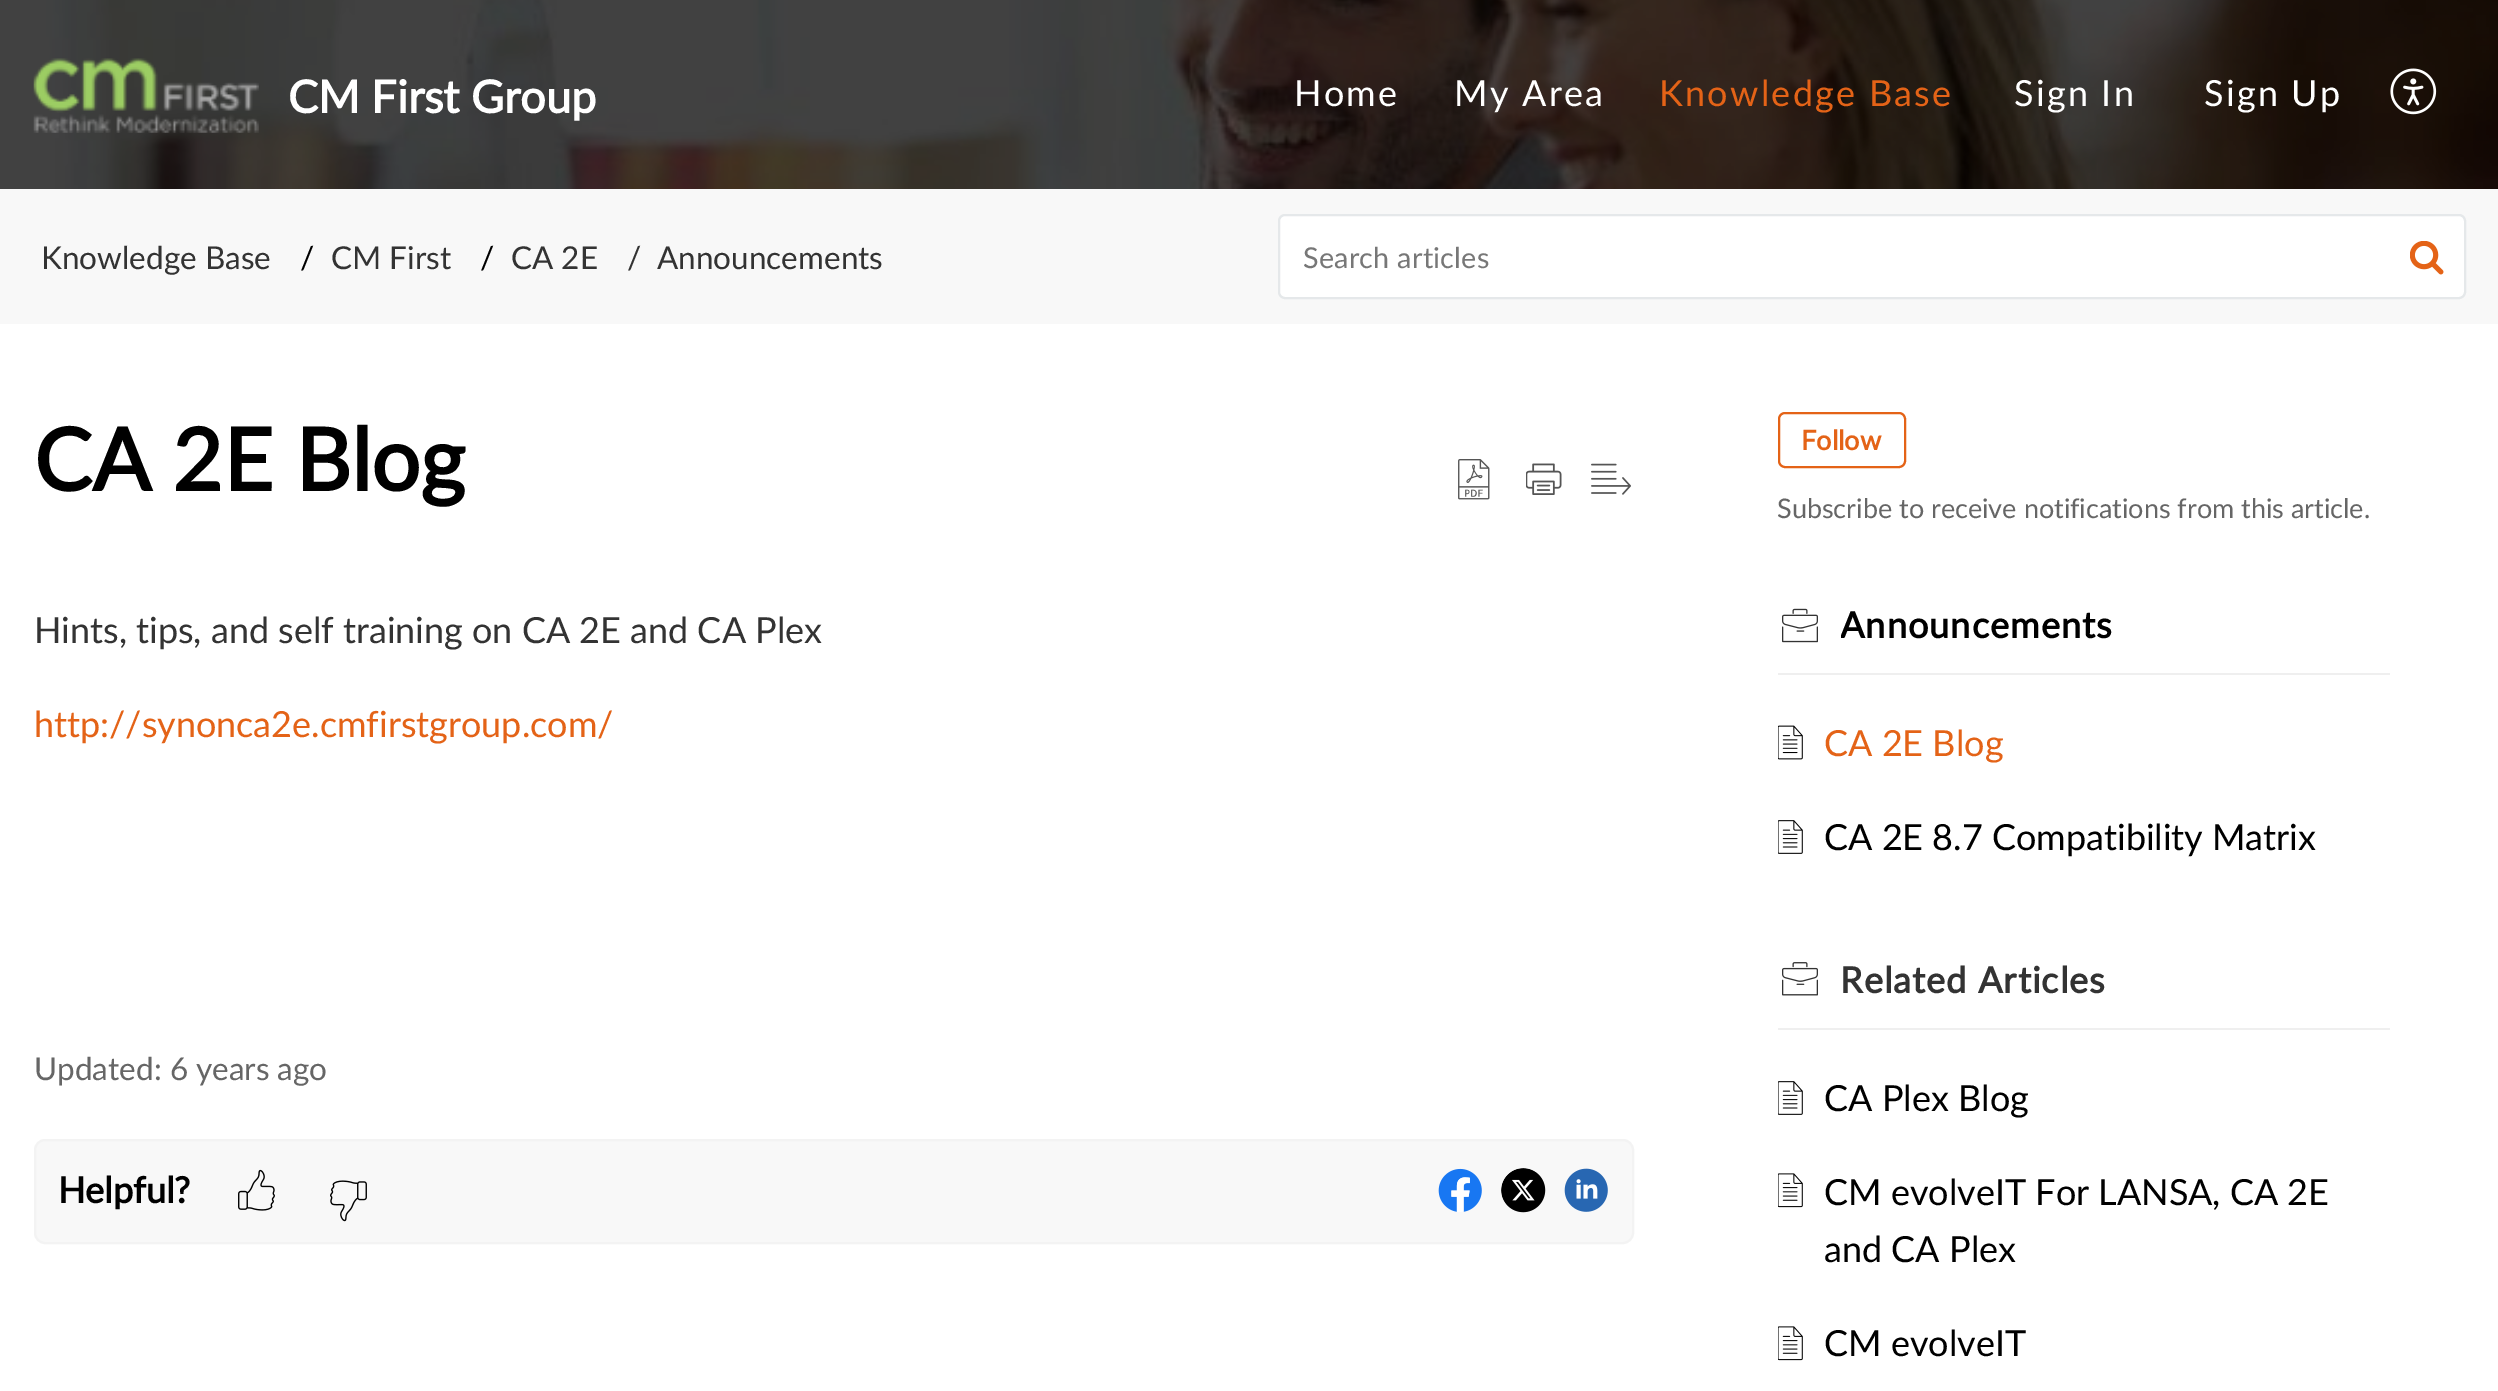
%!PS
<< /PageSize [2498 1391] >> setpagedevice
/rgb { dup -16 bitshift 255 div exch dup -8 bitshift 255 and 255 div exch 255 and 255 div setrgbcolor } def
/font { [ exch dup neg 0 0 3 -1 roll 0 0 ] selectfont } def
/text { moveto show } def
/roundrect { 5 dict begin { /r /h /w /y /x } { exch def } forall
  x r add y moveto x w add y 2 copy h add r arct x w add y h add x 1 index r arct
  x y h add x y r arct x y 2 copy exch w add exch r arct closepath end } def
/picture { 5 dict begin { /h /w /y /x /name } { exch def } forall
  gsave x y translate w h scale
  w h 8 [w 0 0 h 0 0] name (r) file false 3 colorimage grestore end } def
0 1391 translate 1 -1 scale
4 setmiterlimit
/s1 { /Lato-Bold 45 font 16#FFFFFF rgb } def
/s2 { /Lato-Regular 31.5 font 16#333333 rgb } def
/s3 { /Lato-Regular 31.5 font 16#000000 rgb } def
/s4 { /Lato-Bold 86.5 font 16#000000 rgb } def
/s5 { /Lato-Regular 36 font 16#333333 rgb } def
/s6 { /Lato-Regular 36 font 16#E46317 rgb } def
/s7 { /Lato-Regular 31.5 font 16#666666 rgb } def
/s8 { /Lato-Bold 36 font 16#000000 rgb } def
/s9 { /Lato-Bold 27 font 16#E46317 rgb } def
/s10 { /Lato-Regular 27 font 16#666666 rgb } def
/s11 { /Lato-Regular 36 font 16#000000 rgb } def
16#FFFFFF rgb
0 0 2498 1391 rectfill
(pic1.raw) 0 0 2498 189 picture
(pic2.raw) 33 58 226 75 picture
s1
(CM First Group) 288 113 text
/Lato-Regular 36 font
1294 106 moveto 2.25 0 (Home) ashow
1454 106 moveto 2.25 0 (My Area) ashow
16#E46317 rgb
1659 106 moveto 2.25 0 (Knowledge Base) ashow
16#FFFFFF rgb
2014 106 moveto 2.25 0 (Sign In) ashow
2204 106 moveto 2.25 0 (Sign Up) ashow
(pic3.raw) 2390 68 47 47 picture
16#F8F8F8 rgb
0 189 2498 135 rectfill
s2
(Knowledge Base) 41 269 text
s3
(/) 300 269 text
s2
(CM First) 331 269 text
s3
(/) 480 269 text
s2
(CA 2E) 511 269 text
(/) 627 269 text
(Announcements) 657 269 text
16#FFFFFF rgb
1279 215 1186 83 6 roundrect gsave fill grestore
16#E5E8EA rgb
2 setlinewidth
stroke
/Lato-Regular 28.75 font
16#777777 rgb
1303 268 moveto 0.25 0 (Search articles) ashow
(pic4.raw) 2410 241 34 34 picture
s4
(CA 2E Blog) 34 491 text
(pic5.raw) 1458 459 32 41 picture
(pic6.raw) 1526 463 36 32 picture
(pic7.raw) 1591 463 40 32 picture
s5
(Hints, tips, and self training on CA 2E and CA Plex) 34 643 text
s6
(http://synonca2e.cmfirstgroup.com/) 34 737 text
s7
(Updated: 6 years ago) 34 1080 text
16#F8F8F8 rgb
35 1140 1598 103 10 roundrect gsave fill grestore
16#F3F3F3 rgb
stroke
s8
(Helpful?) 58 1203 text
(pic8.raw) 238 1169 37 42 picture
(pic9.raw) 330 1180 37 42 picture
(pic10.raw) 1438 1168 44 44 picture
(pic11.raw) 1501 1168 45 45 picture
(pic12.raw) 1564 1168 44 44 picture
16#E46317 rgb
1779 413 126 54 6 roundrect stroke
s9
(Follow) 1801 450 text
s10
(Subscribe to receive notifications from this article.) 1777 518 text
16#EFEFEF rgb
1778 673 612 2 rectfill
(pic13.raw) 1782 608 36 35 picture
gsave
1841 596 549 59 rectclip
/Lato-Bold 36 font
16#000000 rgb
1840 638 moveto 1.1 0 (Announcements) ashow
grestore
(pic14.raw) 1778 725 25 35 picture
s6
(CA 2E Blog) 1824 756 text
(pic15.raw) 1778 820 25 34 picture
s11
(CA 2E 8.7 Compatibility Matrix) 1824 850 text
16#EFEFEF rgb
1778 1028 612 2 rectfill
(pic16.raw) 1782 962 36 34 picture
/Lato-Bold 36 font
16#333333 rgb
1840 993 moveto 1.1 0 (Related Articles) ashow
(pic15.raw) 1778 1081 25 34 picture
s11
(CA Plex Blog) 1824 1111 text
(pic17.raw) 1778 1173 25 35 picture
(CM evolveIT For LANSA, CA 2E) 1824 1205 text
(and CA Plex) 1824 1262 text
(pic17.raw) 1778 1326 25 35 picture
(CM evolveIT) 1824 1356 text
showpage
